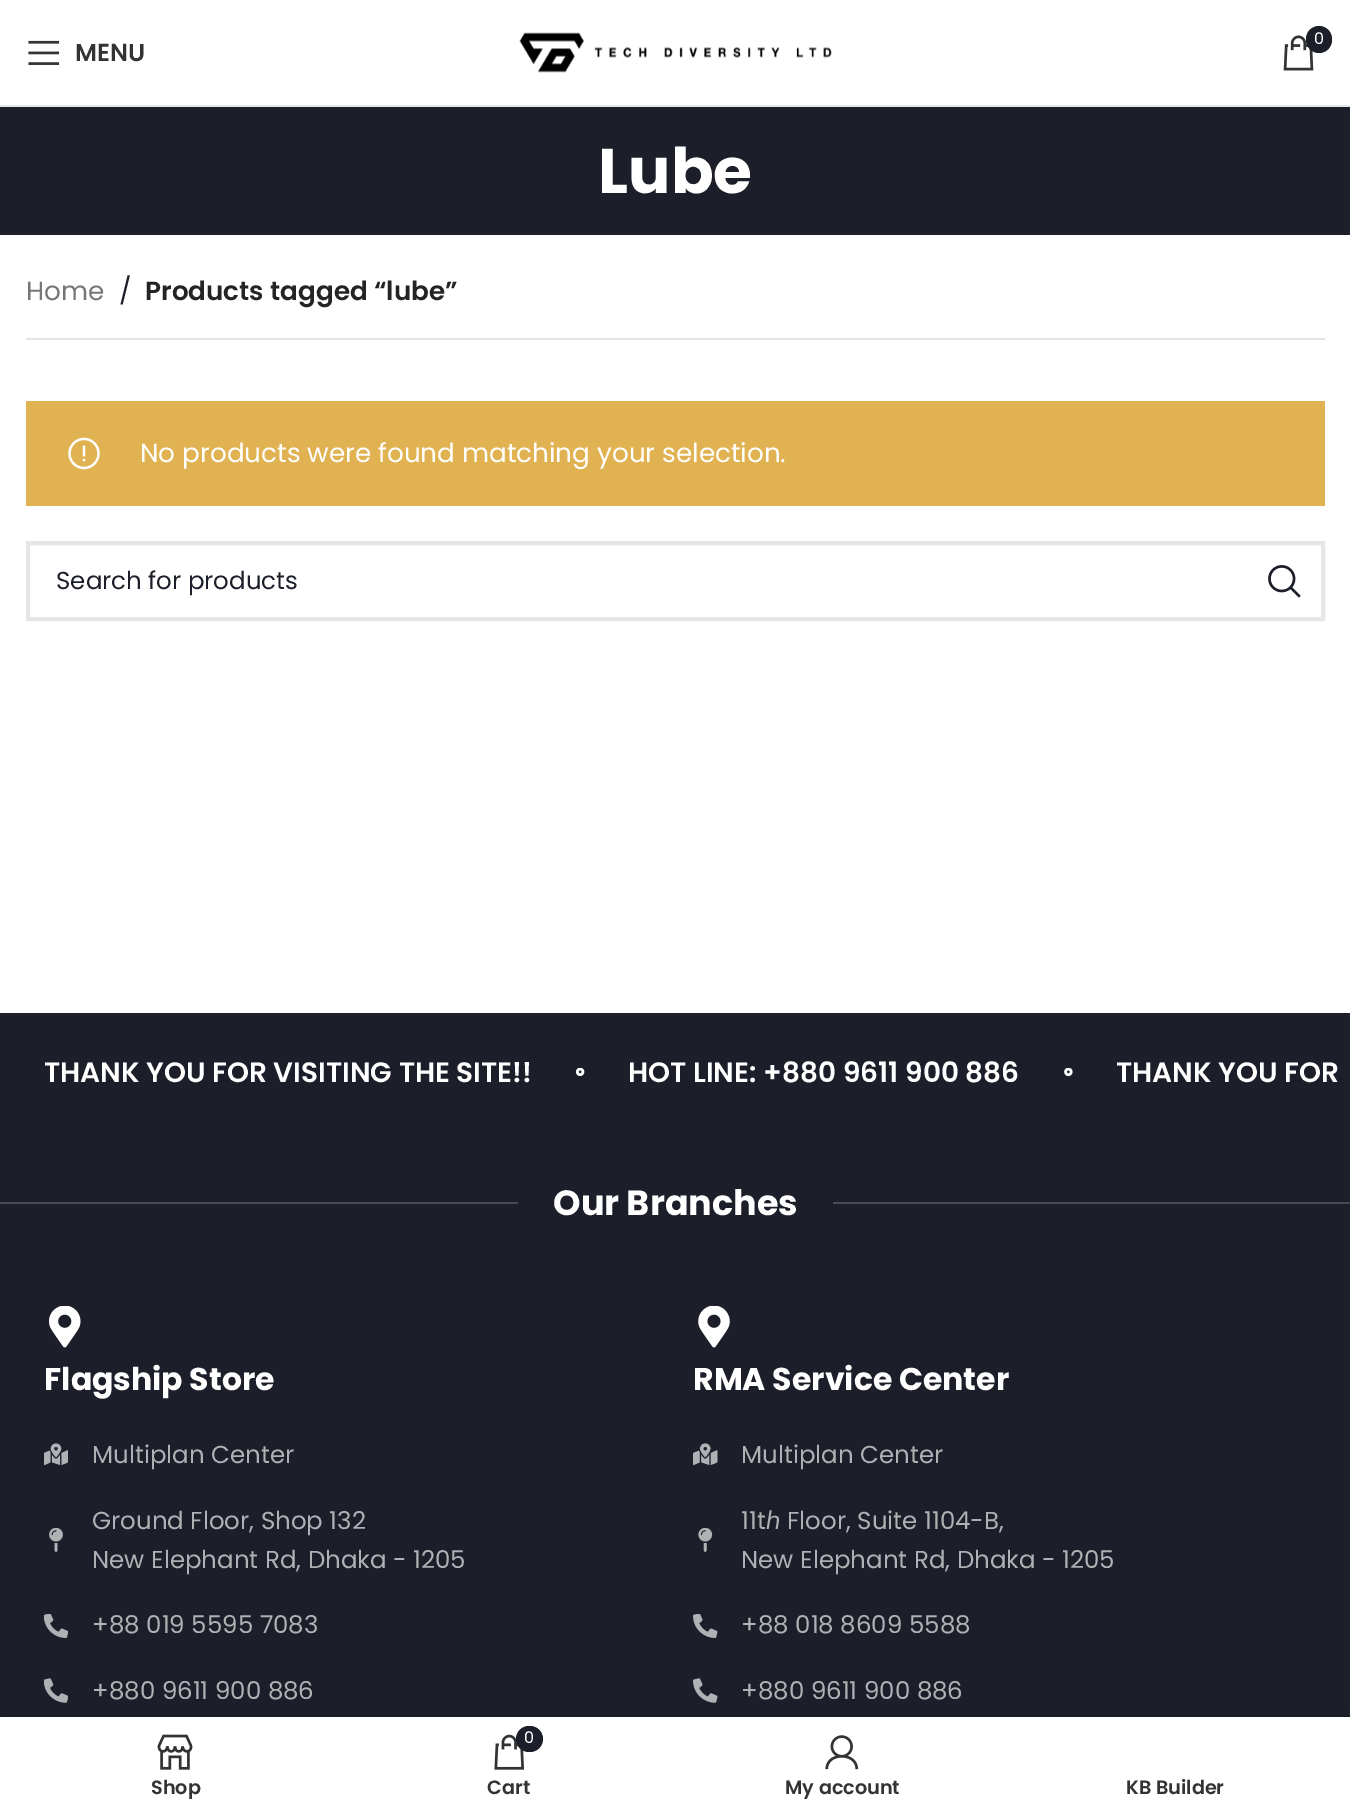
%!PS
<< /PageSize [1350 1813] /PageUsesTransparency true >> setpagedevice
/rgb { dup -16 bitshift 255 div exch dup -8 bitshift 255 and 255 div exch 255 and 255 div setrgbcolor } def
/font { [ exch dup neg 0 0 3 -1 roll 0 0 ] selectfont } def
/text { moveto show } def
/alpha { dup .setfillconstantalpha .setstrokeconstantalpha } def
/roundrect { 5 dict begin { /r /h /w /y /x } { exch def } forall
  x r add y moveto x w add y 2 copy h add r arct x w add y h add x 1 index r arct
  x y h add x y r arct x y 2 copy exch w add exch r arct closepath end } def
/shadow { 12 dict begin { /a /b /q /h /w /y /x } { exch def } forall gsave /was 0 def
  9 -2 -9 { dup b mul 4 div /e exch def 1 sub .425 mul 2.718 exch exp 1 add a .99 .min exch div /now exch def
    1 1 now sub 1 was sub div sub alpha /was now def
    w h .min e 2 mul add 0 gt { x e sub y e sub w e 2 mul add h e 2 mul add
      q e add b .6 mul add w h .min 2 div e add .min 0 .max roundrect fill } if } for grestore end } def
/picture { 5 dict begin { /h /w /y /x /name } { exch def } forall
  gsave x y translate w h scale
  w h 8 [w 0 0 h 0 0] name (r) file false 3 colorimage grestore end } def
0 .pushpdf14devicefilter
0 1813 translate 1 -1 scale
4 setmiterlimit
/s1 { /Poppins-Regular 16 font 16#FFFFFF rgb } def
/s2 { /Poppins-SemiBold 24.5 font 16#333333 rgb } def
/s3 { /Poppins-Bold 63 font 16#FFFFFF rgb } def
/s4 { /Poppins-Regular 26.25 font 16#767676 rgb } def
/s5 { /Poppins-Regular 26.25 font 16#1C1F29 rgb } def
/s6 { /Poppins-SemiBold 26.25 font 16#242424 rgb } def
/s7 { /Poppins-Regular 26.25 font 16#FFFFFF rgb } def
/s8 { /Poppins-Regular 24.5 font 16#1C1F29 rgb } def
/s9 { /Poppins-SemiBold 28 font 16#FFFFFF rgb } def
/s10 { /Poppins-Bold 35 font 16#FFFFFF rgb } def
/s11 { /Poppins-Bold 31.5 font 16#FFFFFF rgb } def
/s12 { /Poppins-Regular 24.5 font 16#B0B1B4 rgb } def
/s13 { /NotoSans-Regular 24.5 font 16#B0B1B4 rgb } def
/s14 { /Poppins-SemiBold 19.25 font 16#333333 rgb } def
16#FFFFFF rgb
0 0 1350 1813 rectfill
16#E8E8E8 rgb
0 105 1350 2 rectfill
(pic1.raw) 519 32 313 41 picture
(pic2.raw) 1283 35 31 36 picture
16#1C1F29 rgb
1306 26 26 27 13 roundrect fill
s1
(0) 1314 44 text
(pic3.raw) 28 40 32 25 picture
s2
(MENU) 75 61 text
16#1C1F29 rgb
0 107 1350 128 rectfill
s3
(Lube) 598 193 text
16#E4E4E4 rgb
26 338 1299 2 rectfill
s4
(Home) 26 300 text
s5
(/) 119 300 text
s6
(Products tagged “lube”) 145 300 text
16#E0B252 rgb
26 401 1299 105 rectfill
(pic4.raw) 68 437 32 33 picture
s7
(No products were found matching your selection.) 140 462 text
16#E6E6E6 rgb
4 setlinewidth
28 543 1295 76 rectstroke
s8
(Search for products) 56 589 text
(pic5.raw) 1268 565 33 33 picture
0 1013 1350 704 rectfill
s9
(THANK YOU FOR VISITING THE SITE!!) 44 1082 text
(pic6.raw) 576 1068 9 8 picture
(HOT LINE: +880 9611 900 886) 628 1082 text
(pic7.raw) 1064 1068 9 8 picture
(THANK YOU FOR) 1116 1082 text
16#494C54 rgb
0 1202 518 2 rectfill
s10
(Our Branches) 553 1215 text
16#494C54 rgb
833 1202 517 2 rectfill
(pic8.raw) 49 1306 32 42 picture
s11
(Flagship Store) 44 1390 text
(pic9.raw) 44 1443 24 23 picture
s12
(Multiplan Center) 92 1463 text
(pic10.raw) 49 1528 14 24 picture
(Ground Floor, Shop 132) 92 1529 text
(New Elephant Rd, Dhaka - 1205) 92 1568 text
(pic11.raw) 44 1614 24 24 picture
(+88 019 5595 7083) 92 1633 text
(pic12.raw) 44 1678 24 25 picture
(+880 9611 900 886) 92 1699 text
(pic13.raw) 698 1306 32 42 picture
s11
(RMA Service Center) 693 1390 text
(pic14.raw) 693 1443 25 23 picture
s12
(Multiplan Center) 741 1463 text
(pic15.raw) 698 1528 15 24 picture
(11t) 741 1529 text
s13
(ℎ) 766 1529 text
s12
(Floor, Suite 1104-B,) 787 1529 text
(New Elephant Rd, Dhaka - 1205) 741 1568 text
(pic16.raw) 693 1614 25 24 picture
(+88 018 8609 5588) 741 1633 text
(pic17.raw) 693 1678 25 25 picture
(+880 9611 900 886) 741 1699 text
16#000000 rgb
0 1717 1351 96 0 8 0.12 shadow
16#FFFFFF rgb
0 1717 1350 96 rectfill
(pic18.raw) 157 1734 36 36 picture
s14
(Shop) 151 1794 text
(pic19.raw) 494 1734 31 36 picture
16#1C1F29 rgb
516 1726 27 26 13 roundrect fill
s1
(0) 524 1743 text
s14
(Cart) 487 1794 text
(pic20.raw) 825 1735 34 35 picture
gsave
693 1776 299 23 rectclip
(My account) 785 1794 text
grestore
(KB Builder) 1126 1794 text
.poppdf14devicefilter showpage
